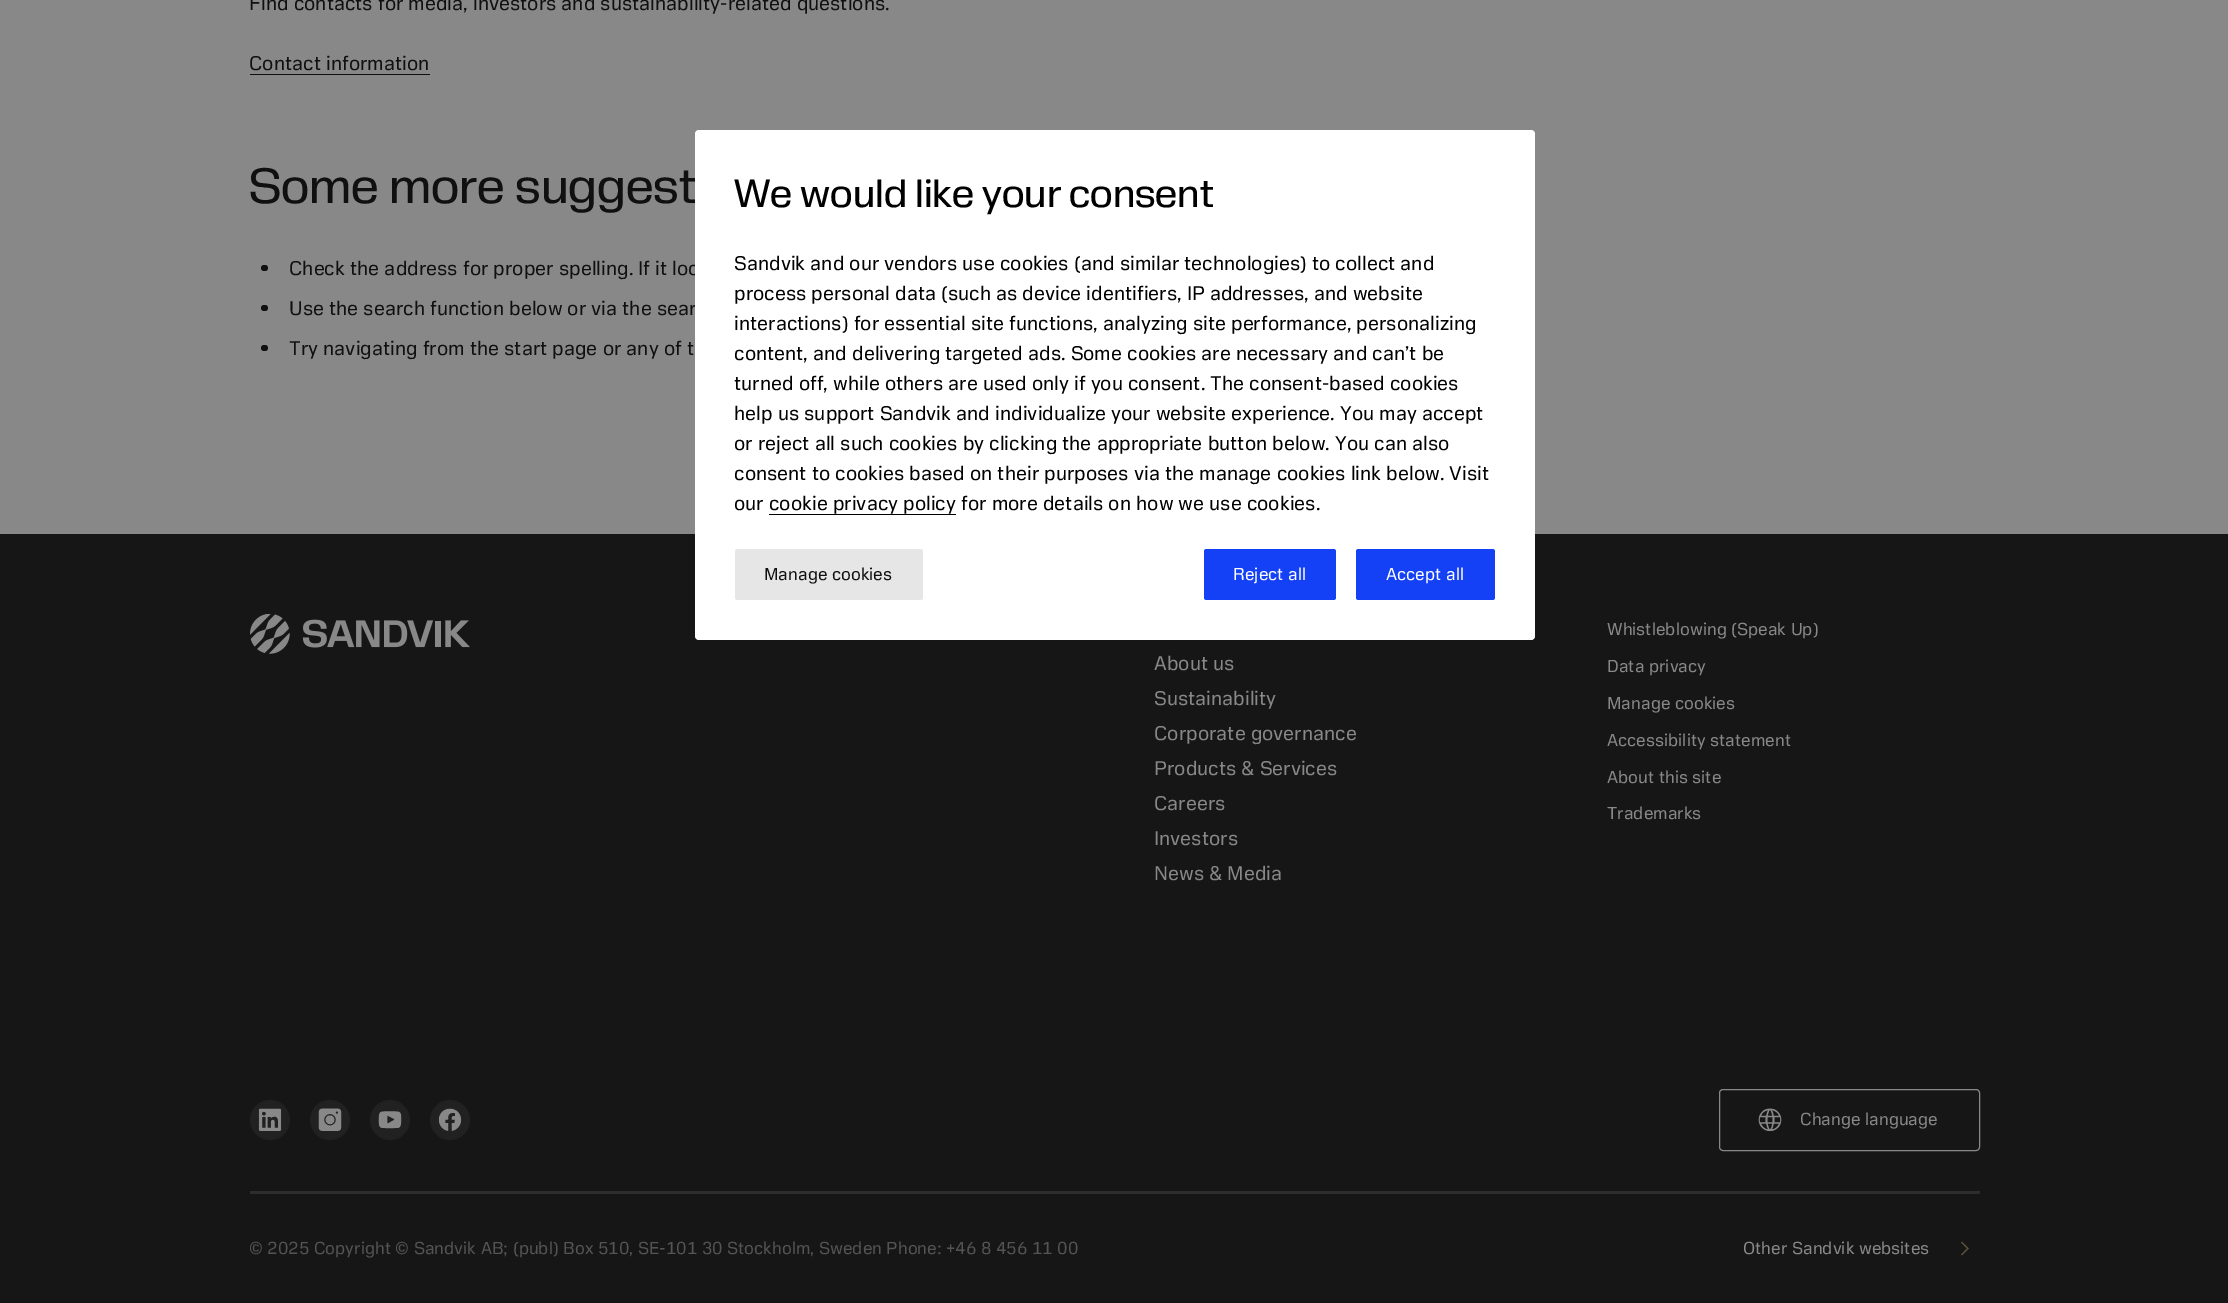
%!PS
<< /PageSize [2228 1303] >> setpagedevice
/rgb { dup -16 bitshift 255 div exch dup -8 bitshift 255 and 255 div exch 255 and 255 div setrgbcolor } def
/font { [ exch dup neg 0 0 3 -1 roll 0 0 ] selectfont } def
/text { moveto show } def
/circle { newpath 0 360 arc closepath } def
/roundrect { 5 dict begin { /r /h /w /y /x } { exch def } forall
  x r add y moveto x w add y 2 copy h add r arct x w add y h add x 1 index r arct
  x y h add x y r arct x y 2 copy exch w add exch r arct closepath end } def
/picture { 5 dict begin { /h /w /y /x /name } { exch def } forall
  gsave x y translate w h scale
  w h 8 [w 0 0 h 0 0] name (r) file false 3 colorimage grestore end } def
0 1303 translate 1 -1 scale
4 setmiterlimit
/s1 { /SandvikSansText-Regular 20 font 16#101010 rgb } def
/s2 { /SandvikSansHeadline-Regular 50 font 16#101010 rgb } def
/s3 { /SandvikSansHeadline-Regular 40 font 16#000000 rgb } def
/s4 { /SandvikSansText-Regular 20 font 16#000000 rgb } def
/s5 { /SandvikSansText-Regular 17.5 font 16#101010 rgb } def
/s6 { /SandvikSansText-Regular 17.5 font 16#FFFFFF rgb } def
/s7 { /SandvikSansText-Regular 20 font 16#888888 rgb } def
/s8 { /SandvikSansText-Regular 17.5 font 16#888888 rgb } def
/s9 { /SandvikSansText-Regular 17.5 font 16#545454 rgb } def
16#888888 rgb
0 0 2228 1303 rectfill
s1
(Find contacts for media, investors and sustainability-related questions.) 249 10 text
(Contact information) 249 70 text
250 74 180 1 rectfill
s2
(Some more suggest) 249 203 text
261 265 7 6 3 roundrect fill
s1
(Check the address for proper spelling. If it loo) 289 275 text
261 305 7 6 3 roundrect fill
(Use the search function below or via the sear) 289 315 text
261 345 7 6 3 roundrect fill
(Try navigating from the start page or any of t) 289 355 text
16#161616 rgb
0 534 2228 769 rectfill
16#FFFFFF rgb
695 130 840 510 4 roundrect fill
s3
(We would like your consent) 734 207 text
s4
(Sandvik and our vendors use cookies \(and similar technologies\) to collect and) 734 270 text
(process personal data \(such as device identifiers, IP addresses, and website) 734 300 text
(interactions\) for essential site functions, analyzing site performance, personalizing) 734 330 text
(content, and delivering targeted ads. Some cookies are necessary and can’t be) 734 360 text
(turned off, while others are used only if you consent. The consent-based cookies) 734 390 text
(help us support Sandvik and individualize your website experience. You may accept) 734 420 text
(or reject all such cookies by clicking the appropriate button below. You can also) 734 450 text
(consent to cookies based on their purposes via the manage cookies link below. Visit) 734 480 text
(our cookie privacy policy for more details on how we use cookies.) 734 510 text
769 514 187 1 rectfill
16#E6E6E6 rgb
735 549 188 51 2.5 roundrect fill
s5
(Manage cookies) 764 580 text
16#1441F5 rgb
1204 549 132 51 2.5 roundrect fill
s6
(Reject all) 1233 580 text
16#1441F5 rgb
1356 549 139 51 2.5 roundrect fill
s6
(Accept all) 1386 580 text
(pic1.raw) 250 614 220 40 picture
s7
(About us) 1154 670 text
(Sustainability) 1154 705 text
(Corporate governance) 1154 740 text
(Products & Services) 1154 775 text
(Careers) 1154 810 text
(Investors) 1154 845 text
(News & Media) 1154 880 text
s8
(Whistleblowing \(Speak Up\)) 1607 635 text
(Data privacy) 1607 672 text
(Manage cookies) 1607 709 text
(Accessibility statement) 1607 746 text
(About this site) 1607 783 text
(Trademarks) 1607 819 text
16#2D2D2D rgb
250 1191 1730 3 rectfill
16#212121 rgb
270 1120 20 circle fill
(pic2.raw) 258 1108 24 23 picture
330 1120 20 circle fill
(pic3.raw) 318 1108 24 23 picture
390 1120 20 circle fill
(pic4.raw) 378 1111 24 18 picture
450 1120 20 circle fill
(pic5.raw) 438 1108 24 23 picture
16#888888 rgb
1719.5 1089.5 260 61 3.5 roundrect stroke
(pic6.raw) 1758 1108 24 23 picture
(Change language) 1800 1125 text
s9
(© 2025 Copyright © Sandvik AB; \(publ\) Box 510, SE-101 30 Stockholm, Sweden Phone: +46 8 456 11 00) 249 1254 text
s8
(Other Sandvik websites) 1743 1254 text
(pic7.raw) 1961 1241 8 15 picture
showpage
